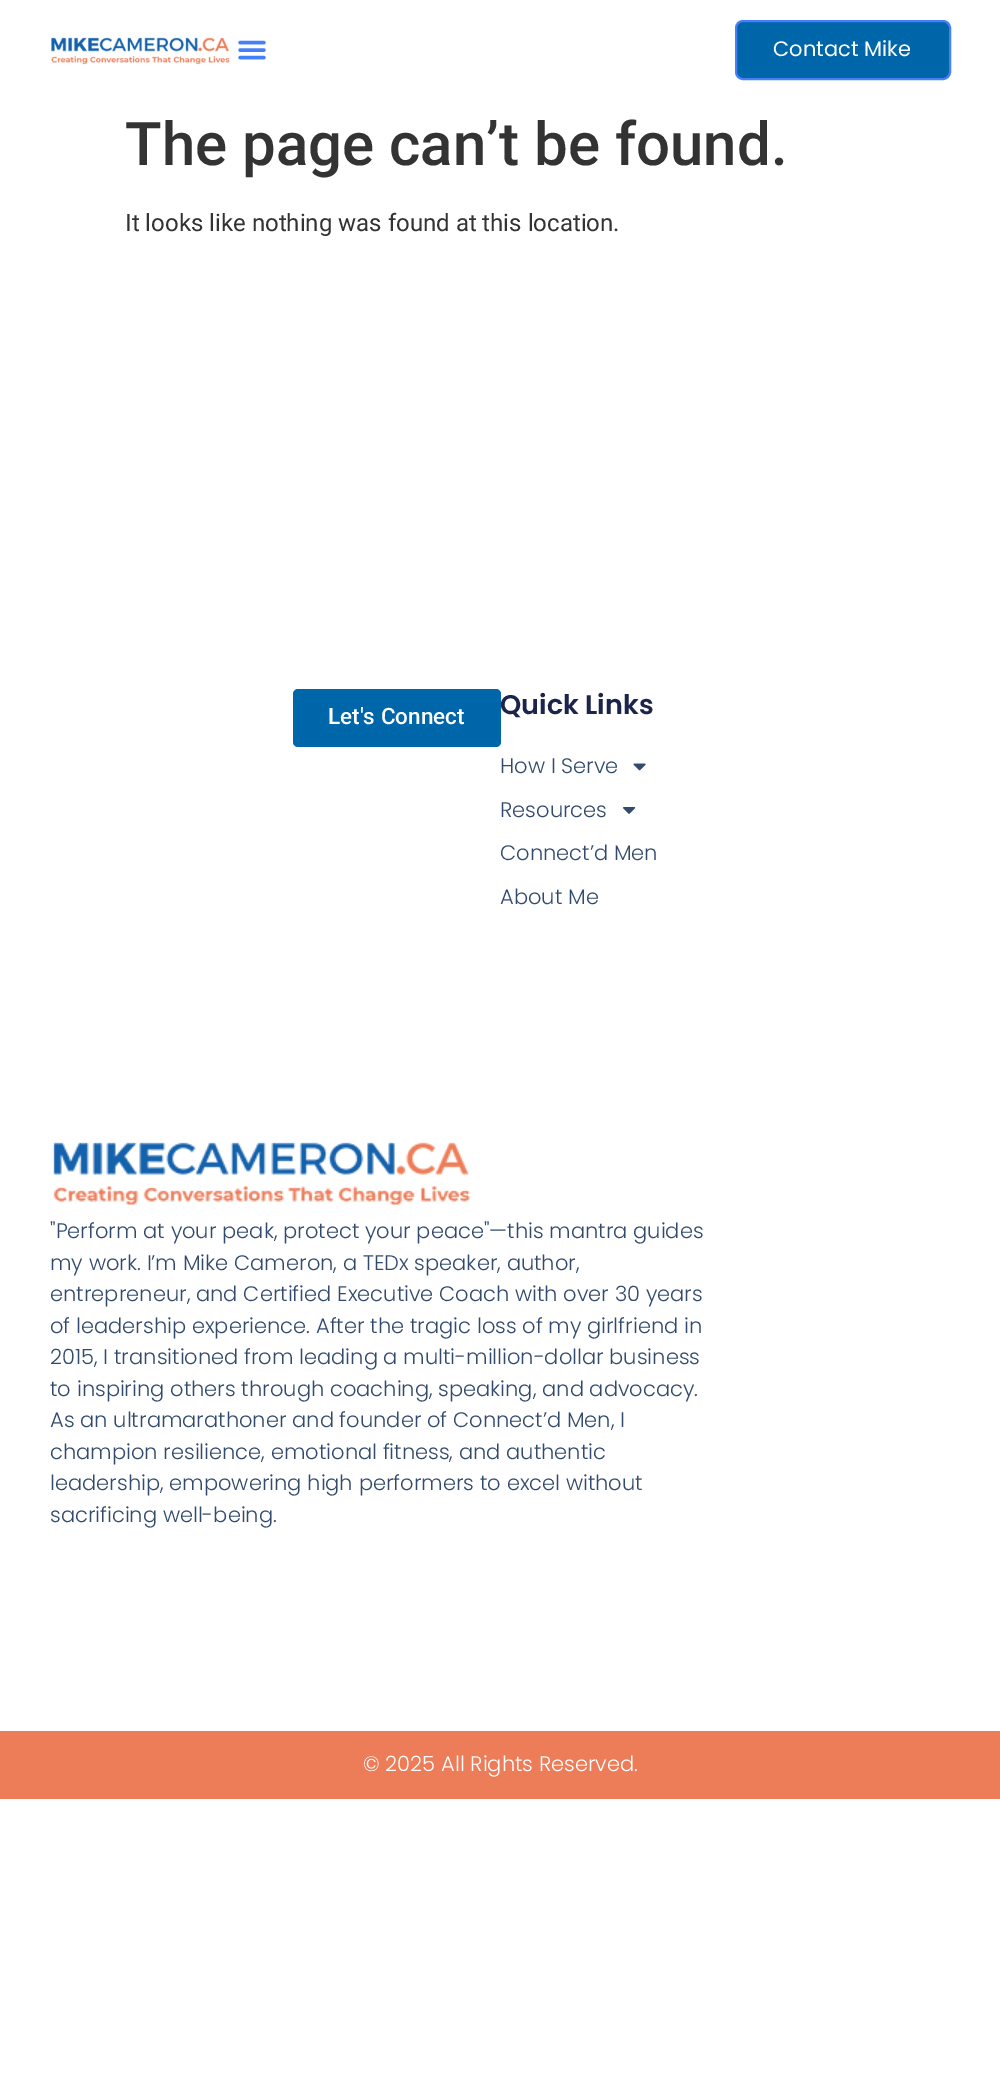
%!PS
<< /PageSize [1000 2094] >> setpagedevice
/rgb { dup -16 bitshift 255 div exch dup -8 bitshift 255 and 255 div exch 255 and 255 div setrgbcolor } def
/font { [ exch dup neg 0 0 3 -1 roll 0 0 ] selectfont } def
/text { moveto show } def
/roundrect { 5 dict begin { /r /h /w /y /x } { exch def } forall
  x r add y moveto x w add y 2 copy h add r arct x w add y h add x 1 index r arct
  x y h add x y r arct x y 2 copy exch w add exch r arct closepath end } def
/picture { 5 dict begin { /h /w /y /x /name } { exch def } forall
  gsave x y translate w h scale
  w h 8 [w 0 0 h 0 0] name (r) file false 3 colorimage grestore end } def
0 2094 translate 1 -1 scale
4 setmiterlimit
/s1 { /Poppins-Regular 21 font 16#FFFFFF rgb } def
/s2 { /Roboto-Medium 60 font 16#333333 rgb } def
/s3 { /Roboto-Regular 24 font 16#333333 rgb } def
/s4 { /Roboto-Medium 22.5 font 16#FFFFFF rgb } def
/s5 { /Poppins-SemiBold 27 font 16#1C244B rgb } def
/s6 { /Poppins-Light 21 font 16#324A6D rgb } def
/s7 { /Poppins-Light 21 font 16#FFFFFF rgb } def
16#FFFFFF rgb
0 0 1000 2094 rectfill
(pic1.raw) 51 37 179 28 picture
(pic2.raw) 238 40 28 20 picture
16#0066AA rgb
736 21 214 58 7 roundrect gsave fill grestore
16#467FF7 rgb
2 setlinewidth
stroke
s1
(Contact Mike) 773 56 text
s2
(The page can’t be found.) 125 165 text
s3
(It looks like nothing was found at this location.) 125 231 text
16#0066AA rgb
293 689 208 58 5 roundrect fill
s4
(Let's Connect) 328 724 text
s5
(Quick Links) 500 714 text
s6
(How I Serve) 500 773 text
(pic3.raw) 633 763 13 8 picture
(Resources) 500 817 text
(pic4.raw) 623 807 13 7 picture
(Connect’d Men) 500 860 text
(About Me) 500 904 text
(pic5.raw) 53 1142 417 63 picture
("Perform at your peak, protect your peace"—this mantra guides) 50 1238 text
(my work. I’m Mike Cameron, a TEDx speaker, author,) 50 1270 text
(entrepreneur, and Certified Executive Coach with over 30 years) 50 1301 text
(of leadership experience. After the tragic loss of my girlfriend in) 50 1333 text
(2015, I transitioned from leading a multi-million-dollar business) 50 1364 text
(to inspiring others through coaching, speaking, and advocacy.) 50 1396 text
(As an ultramarathoner and founder of Connect’d Men, I) 50 1427 text
(champion resilience, emotional fitness, and authentic) 50 1459 text
(leadership, empowering high performers to excel without) 50 1490 text
(sacrificing well-being.) 50 1522 text
16#ED7C58 rgb
0 1731 1000 68 rectfill
s7
(© 2025 All Rights Reserved.) 363 1771 text
showpage
